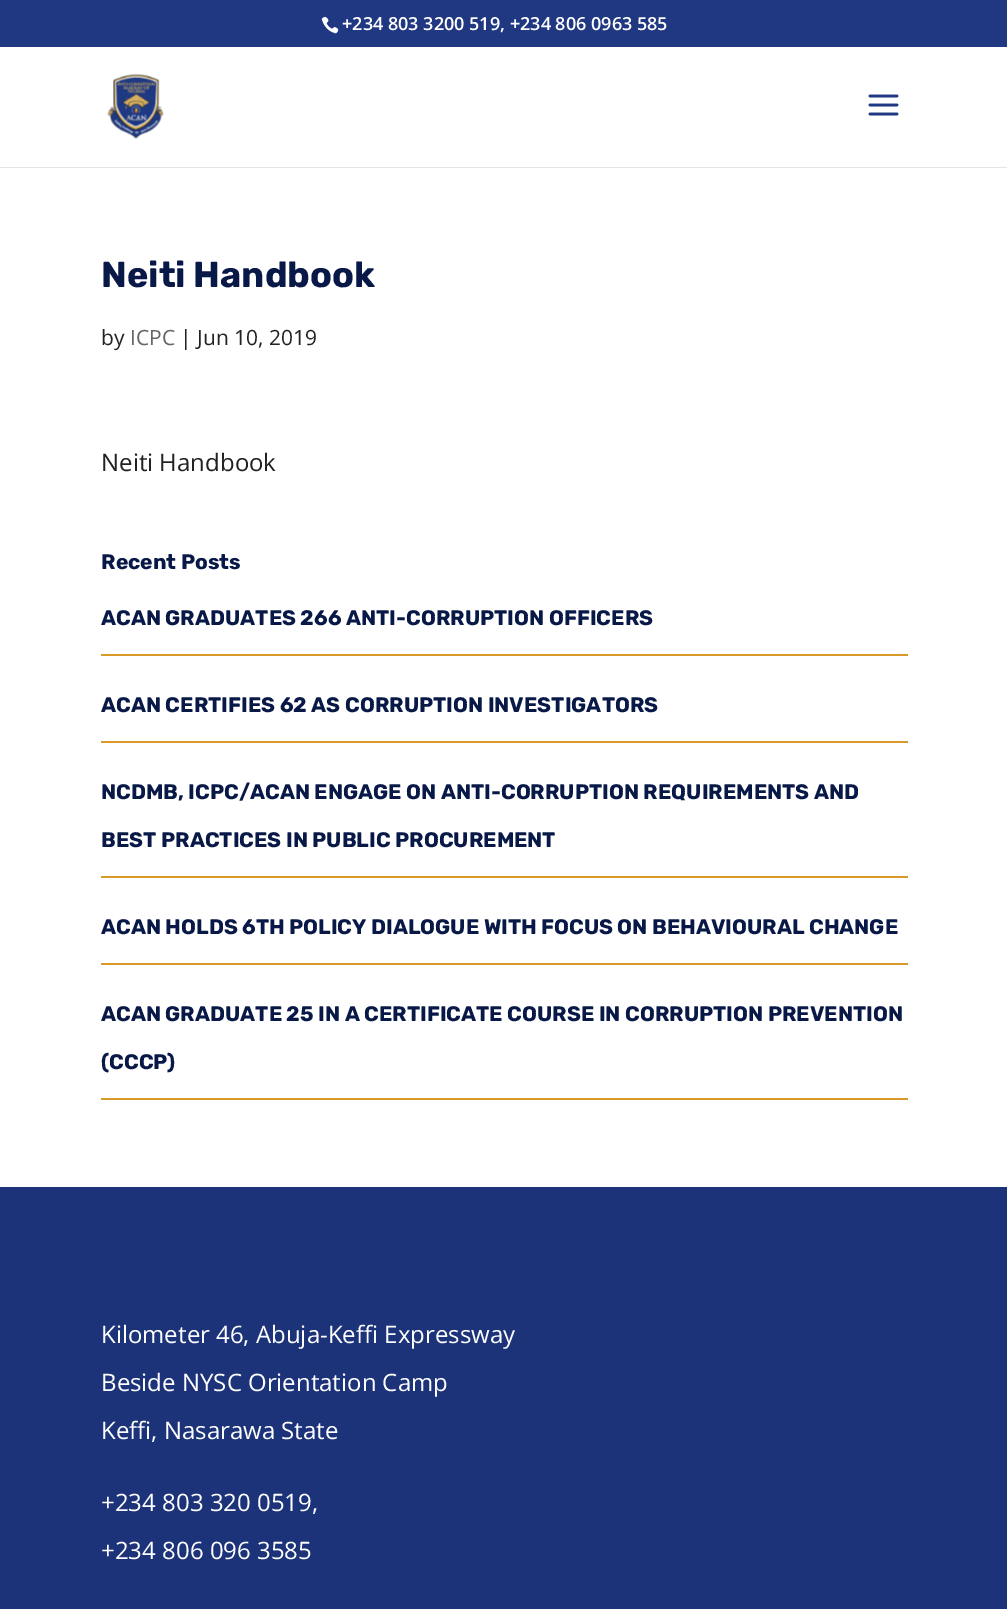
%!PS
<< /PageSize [1007 1609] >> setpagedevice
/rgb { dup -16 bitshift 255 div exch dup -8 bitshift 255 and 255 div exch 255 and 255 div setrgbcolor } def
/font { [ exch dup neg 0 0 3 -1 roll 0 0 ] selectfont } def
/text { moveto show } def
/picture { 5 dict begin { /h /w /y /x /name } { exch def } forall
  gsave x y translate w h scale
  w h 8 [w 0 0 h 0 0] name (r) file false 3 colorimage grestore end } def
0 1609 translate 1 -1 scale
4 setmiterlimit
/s1 { /OpenSans-SemiBold 18 font 16#FFFFFF rgb } def
/s2 { /Rubik-Light 36 font 16#081847 rgb } def
/s3 { /OpenSans-Regular 21 font 16#222222 rgb } def
/s4 { /OpenSans-Regular 21 font 16#666666 rgb } def
/s5 { /OpenSans-Regular 24 font 16#222222 rgb } def
/s6 { /Rubik-Light 21 font 16#081847 rgb } def
/s7 { /OpenSans-Regular 24 font 16#FFFFFF rgb } def
16#FFFFFF rgb
0 0 1007 1609 rectfill
16#203882 rgb
0 0 1007 47 rectfill
(pic1.raw) 321 16 18 18 picture
s1
(+234 803 3200 519, +234 806 0963 585) 342 30 text
16#E6E6E6 rgb
0 167 1007 1 rectfill
(pic2.raw) 107 74 57 65 picture
(pic3.raw) 868 94 31 22 picture
s2
(Neiti Handbook) 101 287 text
s3
(by) 101 345 text
s4
(ICPC) 130 345 text
s3
(| Jun 10, 2019) 180 345 text
s5
(Neiti Handbook) 101 471 text
s6
(Recent Posts) 101 569 text
16#D89928 rgb
101 654 807 2 rectfill
s6
(ACAN GRADUATES 266 ANTI-CORRUPTION OFFICERS) 101 625 text
16#D89928 rgb
101 741 807 2 rectfill
s6
(ACAN CERTIFIES 62 AS CORRUPTION INVESTIGATORS) 101 712 text
16#D89928 rgb
101 876 807 2 rectfill
s6
(NCDMB, ICPC/ACAN ENGAGE ON ANTI-CORRUPTION REQUIREMENTS AND) 101 799 text
(BEST PRACTICES IN PUBLIC PROCUREMENT) 101 847 text
16#D89928 rgb
101 963 807 2 rectfill
s6
(ACAN HOLDS 6TH POLICY DIALOGUE WITH FOCUS ON BEHAVIOURAL CHANGE) 101 934 text
16#D89928 rgb
101 1098 807 2 rectfill
s6
(ACAN GRADUATE 25 IN A CERTIFICATE COURSE IN CORRUPTION PREVENTION) 101 1021 text
(\(CCCP\)) 101 1069 text
16#1C337A rgb
0 1187 1007 422 rectfill
s7
(Kilometer 46, Abuja-Keffi Expressway) 101 1343 text
(Beside NYSC Orientation Camp) 101 1391 text
(Keffi, Nasarawa State) 101 1439 text
(+234 803 320 0519,) 101 1511 text
(+234 806 096 3585) 101 1559 text
showpage
